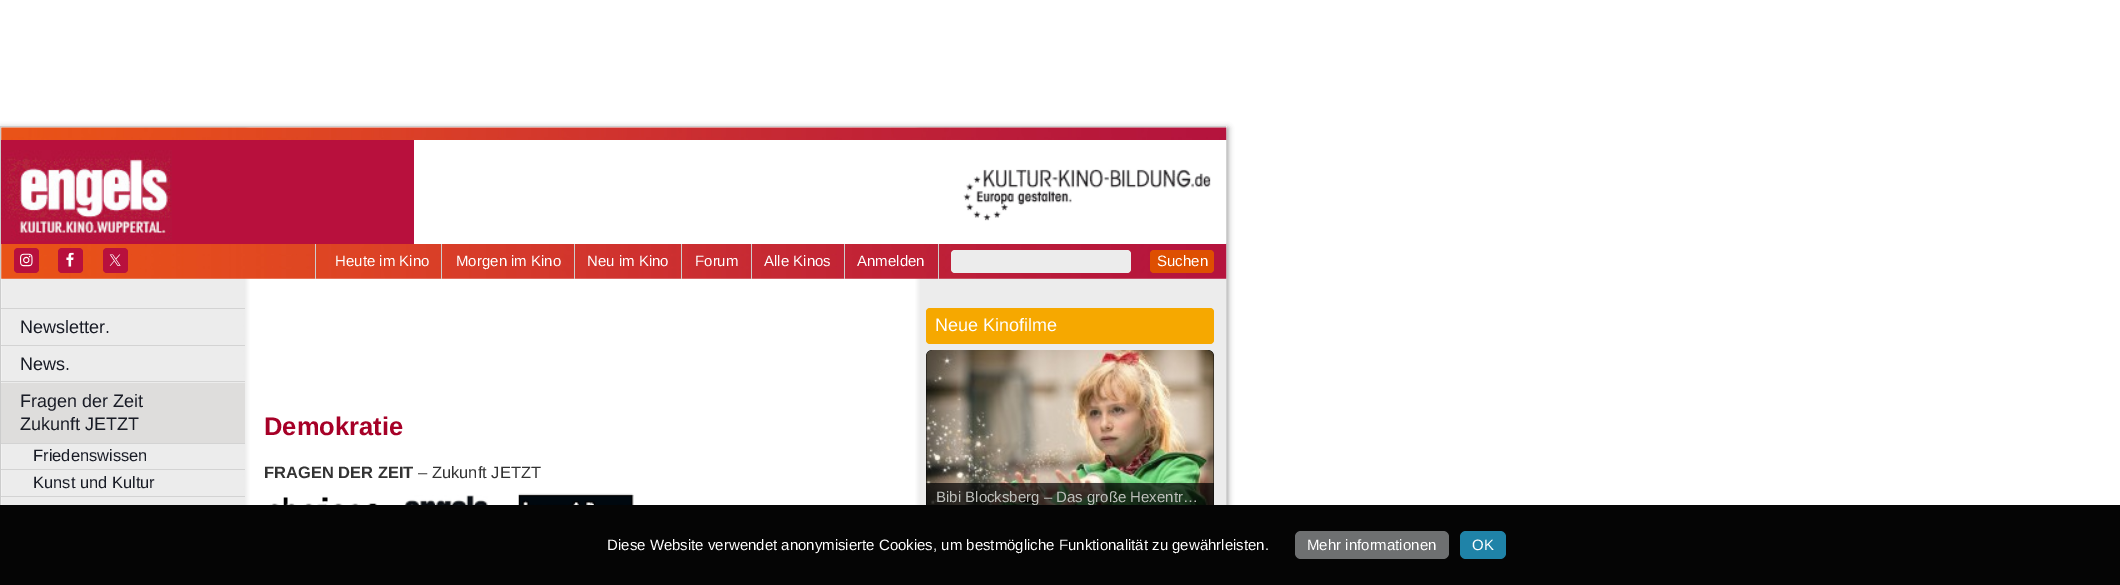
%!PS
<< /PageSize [2120 585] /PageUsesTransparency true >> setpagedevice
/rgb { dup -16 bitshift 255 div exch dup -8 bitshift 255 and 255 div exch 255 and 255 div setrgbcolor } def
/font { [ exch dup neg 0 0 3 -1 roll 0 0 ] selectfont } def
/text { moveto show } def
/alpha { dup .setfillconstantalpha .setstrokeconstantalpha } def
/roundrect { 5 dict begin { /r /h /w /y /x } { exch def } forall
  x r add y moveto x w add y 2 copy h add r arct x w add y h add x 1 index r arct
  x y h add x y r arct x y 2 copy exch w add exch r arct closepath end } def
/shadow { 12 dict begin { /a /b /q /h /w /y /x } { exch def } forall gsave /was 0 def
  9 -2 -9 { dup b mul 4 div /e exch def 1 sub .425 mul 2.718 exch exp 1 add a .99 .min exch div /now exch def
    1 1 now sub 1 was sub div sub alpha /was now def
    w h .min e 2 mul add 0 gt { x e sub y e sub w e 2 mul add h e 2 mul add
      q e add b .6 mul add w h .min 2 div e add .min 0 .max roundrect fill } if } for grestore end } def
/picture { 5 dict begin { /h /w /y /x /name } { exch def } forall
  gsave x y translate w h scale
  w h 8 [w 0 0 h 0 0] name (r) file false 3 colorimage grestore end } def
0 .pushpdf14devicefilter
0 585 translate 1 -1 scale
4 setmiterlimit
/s1 { /LiberationSans-Regular 15 font 16#FFFFFF rgb } def
/s2 { /LiberationSans-Regular 18 font 16#191C26 rgb } def
/s3 { /LiberationSans-Regular 16.5 font 16#191C26 rgb } def
/s4 { /LiberationSans-Bold 25.5 font 16#A60027 rgb } def
/s5 { /LiberationSans-Bold 16.5 font 16#333333 rgb } def
/s6 { /LiberationSans-Regular 16.5 font 16#333333 rgb } def
/s7 { /LiberationSans-Regular 18 font 16#FFFFFF rgb } def
/s8 { /LiberationSans-Regular 15 font 16#BEC0BC rgb } def
16#FFFFFF rgb
0 0 2120 585 rectfill
16#999999 rgb
1 128 1227 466 0 3 1 shadow
(pic1.raw) 1 126 1226 379 picture
16#CCCCCC rgb
0 126 1226 1 rectfill
0 126 1 379 rectfill
(pic2.raw) 1 127 1226 13 picture
(pic5.raw) 1 243 1226 36 picture
16#B8103D rgb
1 140 413 104 rectfill
(pic3.raw) 1 150 171 91 picture
16#FFFFFF rgb
414 140 812 104 rectfill
(pic4.raw) 963 169 248 52 picture
16#B8103D rgb
14 248 25 25 4 roundrect fill
(pic6.raw) 20 253 13 14 picture
58 248 25 25 4 roundrect fill
(pic7.raw) 66 252 8 15 picture
103 248 25 25 4 roundrect fill
(pic8.raw) 109 254 12 12 picture
16#CCCCCC rgb
441 244 1 35 rectfill
315 244 1 35 rectfill
s1
(Heute im Kino) 335 266 text
16#CCCCCC rgb
574 244 1 35 rectfill
s1
(Morgen im Kino) 456 266 text
16#CCCCCC rgb
681 244 1 35 rectfill
s1
(Neu im Kino) 587 266 text
16#CCCCCC rgb
751 244 1 35 rectfill
s1
(Forum) 695 266 text
16#CCCCCC rgb
844 244 1 35 rectfill
s1
(Alle Kinos) 764 266 text
16#CCCCCC rgb
938 244 1 35 rectfill
s1
(Anmelden) 857 266 text
16#ECECEC rgb
951 250 180 23 4 roundrect fill
16#DE4F01 rgb
1150 250 64 23 4 roundrect fill
s1
(Suchen) 1157 266 text
16#D3D3D3 rgb
1 308 244 1 rectfill
s2
(Newsletter.) 20 333 text
16#D3D3D3 rgb
1 345 244 1 rectfill
s2
(News.) 20 370 text
16#D3D3D3 rgb
1 381 244 1 rectfill
16#DEDDDC rgb
1 383 244 60 rectfill
s2
(Fragen der Zeit) 20 407 text
(Zukunft JETZT) 20 430 text
16#D3D3D3 rgb
1 443 244 1 rectfill
s3
(Friedenswissen) 33 461 text
16#D3D3D3 rgb
1 469 244 1 rectfill
s3
(Kunst und Kultur) 33 488 text
16#D3D3D3 rgb
1 496 244 1 rectfill
s4
(Demokratie) 264 435 text
s5
(FRAGEN DER ZEIT) 264 478 text
s6
(– Zukunft JETZT) 418 478 text
(pic9.raw) 266 496 115 9 picture
(pic10.raw) 404 495 85 10 picture
(pic11.raw) 518 493 116 12 picture
16#F6A800 rgb
926 308 288 36 4 roundrect fill
s7
(Neue Kinofilme) 935 331 text
16#000000 rgb
926 350 288 163 6 roundrect fill
(pic12.raw) 926 350 288 155 picture
0.7 alpha
926 483 288 22 rectfill
1 alpha
s8
(Bibi Blocksberg – Das große Hexentr…) 936 502 text
16#050505 rgb
0 505 2120 80 rectfill
s1
(Diese Website verwendet anonymisierte Cookies, um bestmögliche Funktionalität zu gewährleisten.) 607 550 text
16#6E7071 rgb
1295 531 154 28 6 roundrect fill
s1
(Mehr informationen) 1307 550 text
16#1F83A8 rgb
1460 531 46 28 6 roundrect fill
s1
(OK) 1472 550 text
.poppdf14devicefilter showpage
